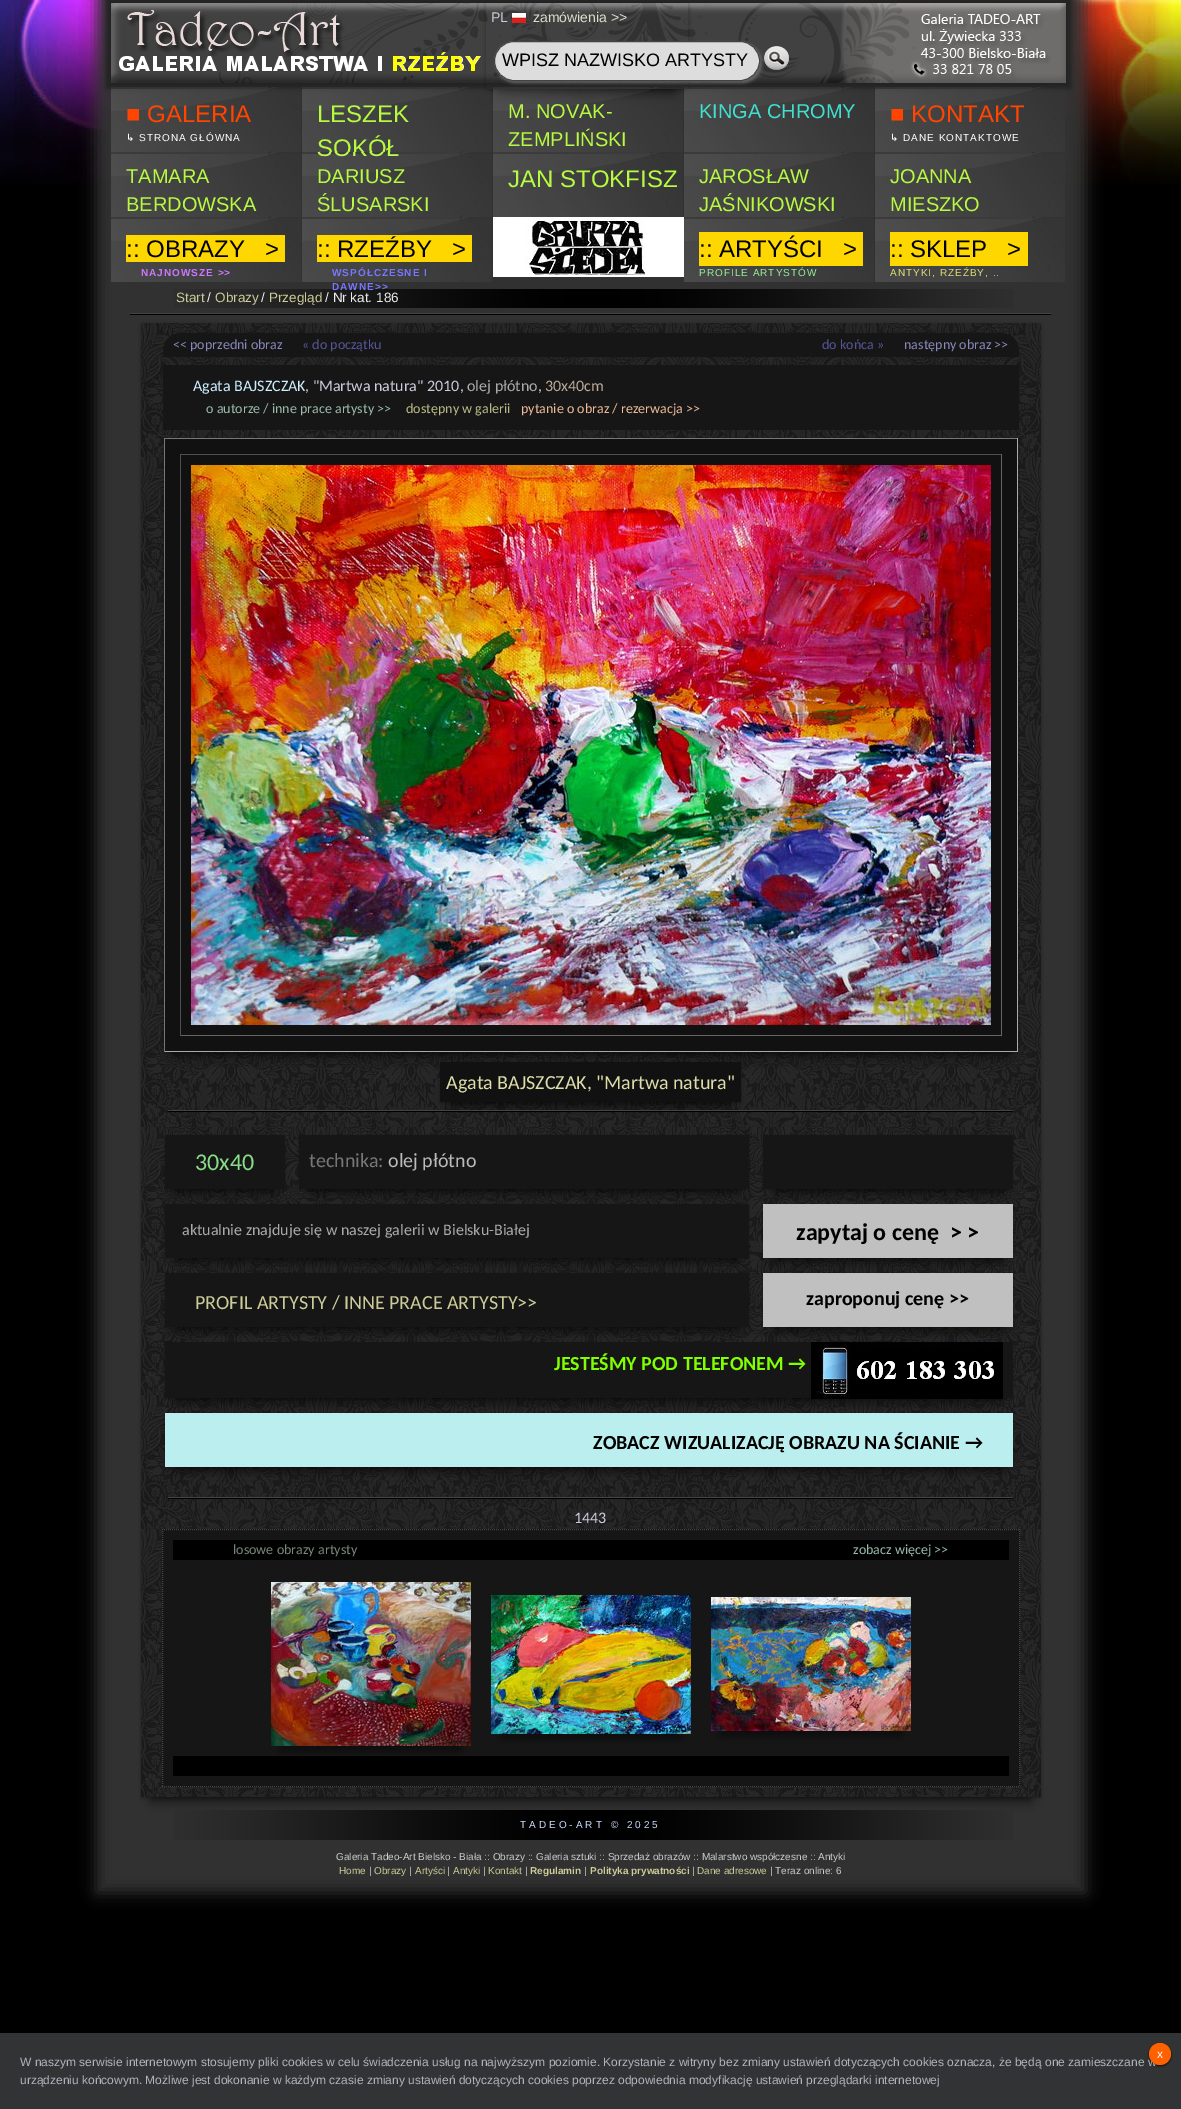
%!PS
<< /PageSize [1181 2109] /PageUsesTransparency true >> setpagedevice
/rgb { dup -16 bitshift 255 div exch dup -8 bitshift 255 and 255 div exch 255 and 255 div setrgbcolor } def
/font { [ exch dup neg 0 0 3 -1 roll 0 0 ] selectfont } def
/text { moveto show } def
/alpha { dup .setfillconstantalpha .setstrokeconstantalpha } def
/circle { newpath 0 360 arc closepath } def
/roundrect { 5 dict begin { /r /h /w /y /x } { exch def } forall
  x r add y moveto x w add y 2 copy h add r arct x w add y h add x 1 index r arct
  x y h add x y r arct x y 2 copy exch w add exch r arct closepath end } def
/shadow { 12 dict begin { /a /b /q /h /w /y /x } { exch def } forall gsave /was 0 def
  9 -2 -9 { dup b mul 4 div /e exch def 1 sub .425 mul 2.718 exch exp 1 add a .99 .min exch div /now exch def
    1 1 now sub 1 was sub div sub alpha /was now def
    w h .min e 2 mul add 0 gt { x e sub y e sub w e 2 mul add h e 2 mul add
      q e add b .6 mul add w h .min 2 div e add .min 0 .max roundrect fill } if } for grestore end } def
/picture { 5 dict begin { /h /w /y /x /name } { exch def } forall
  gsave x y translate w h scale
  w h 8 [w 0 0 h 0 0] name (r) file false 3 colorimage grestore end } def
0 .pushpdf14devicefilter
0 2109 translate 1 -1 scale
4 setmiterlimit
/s1 { /LiberationSans-Regular 14 font 16#CCCCDD rgb } def
/s2 { /LiberationSans-Regular 14 font 16#DDDDCC rgb } def
/s3 { /LiberationSans-Regular 18 font 16#000000 rgb } def
/s4 { /LiberationSans-Regular 24 font 16#FF4500 rgb } def
/s5 { /LiberationSans-Regular 24 font 16#B6FA41 rgb } def
/s6 { /LiberationSans-Regular 20 font 16#B6FA41 rgb } def
/s7 { /LiberationSans-Regular 20 font 16#40E0D0 rgb } def
/s8 { /LiberationSans-Regular 24 font 16#000000 rgb } def
/s9 { /LiberationSans-Regular 13.5 font 16#CCCC99 rgb } def
/s10 { /LiberationSans-Regular 13.5 font 16#EEEEEE rgb } def
/s11 { /Carlito-Regular 14 font 16#8888BB rgb } def
/s12 { /Carlito-Regular 14 font 16#555599 rgb } def
/s13 { /Carlito-Regular 16 font 16#CCEEFF rgb } def
/s14 { /Carlito-Regular 16 font 16#CCCCDD rgb } def
/s15 { /Carlito-Regular 16 font 16#AAAAAA rgb } def
/s16 { /Carlito-Regular 16 font 16#BBAA99 rgb } def
/s17 { /Carlito-Regular 14 font 16#99BBAA rgb } def
/s18 { /Carlito-Regular 14 font 16#BBBB88 rgb } def
/s19 { /Carlito-Regular 14 font 16#EEBB99 rgb } def
/s20 { /Carlito-Regular 20 font 16#DDDDAA rgb } def
/s21 { /Carlito-Regular 24 font 16#88DD88 rgb } def
/s22 { /Carlito-Regular 20 font 16#777777 rgb } def
/s23 { /Carlito-Regular 20 font 16#BBBBBB rgb } def
/s24 { /Carlito-Bold 24 font 16#000000 rgb } def
/s25 { /Carlito-Regular 20 font 16#CCCC99 rgb } def
/s26 { /Carlito-Bold 20 font 16#000000 rgb } def
/s27 { /Carlito-Bold 20 font 16#7FFF00 rgb } def
/s28 { /Carlito-Regular 14 font 16#778877 rgb } def
/s29 { /LiberationSans-Regular 10 font 16#CCCCCC rgb } def
/s30 { /LiberationSans-Regular 10 font 16#CCCC99 rgb } def
/s31 { /LiberationSans-Bold 10 font 16#CCCC99 rgb } def
/s32 { /LiberationSans-Regular 12 font 16#AFB4BC rgb } def
/s33 { /LiberationSans-Regular 12 font 16#FFFFFF rgb } def
16#000000 rgb
0 0 1181 2109 rectfill
(pic1.raw) 0 0 1181 184 picture
16#333333 rgb
96 -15 990 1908 0 7.5 1 shadow
111 0 960 42 rectfill
16#222222 rgb
106 -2 965 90 0 2.5 1 shadow
(pic2.raw) 111 3 955 80 picture
gsave
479 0 moveto 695 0 lineto 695 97 lineto 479 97 lineto closepath 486 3 moveto 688 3 lineto 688 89 lineto 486 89 lineto closepath eoclip newpath
16#000000 rgb
486 4 202 86 0 2 0.3 shadow
grestore
gsave
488 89 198 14 rectclip
16#000000 rgb
496 28 182 66 0 5 0.5 shadow
grestore
s1
(PL) 491 22 text
(pic3.raw) 512 13 14 10 picture
s2
(zamówienia >>) 533 22 text
16#666666 rgb
496 43 266 40 20 1.5 1 shadow
16#DDDDDD rgb
494.5 41.5 265 39 19.5 roundrect gsave fill grestore
16#444444 rgb
stroke
s3
(WPISZ NAZWISKO ARTYSTY) 502 66 text
(pic4.raw) 764 46 25 24 picture
(pic5.raw) 111 87 190 65 picture
s4
(■ GALERIA) 126 122 text
/DejaVuSans-Regular 10 font
16#FFFFFF rgb
126 141 moveto 1 0 (↳) ashow
/LiberationSans-Regular 10 font
139 141 moveto 1 0 (STRONA GŁÓWNA) ashow
(pic6.raw) 302 87 190 65 picture
s5
(LESZEK) 317 122 text
(SOKÓŁ) 317 156 text
(pic7.raw) 493 87 190 65 picture
s6
(M. NOVAK-) 508 118 text
(ZEMPLIŃSKI) 508 146 text
(pic8.raw) 684 87 190 65 picture
s7
(KINGA CHROMY) 699 118 text
(pic5.raw) 875 87 190 65 picture
s4
(■ KONTAKT) 890 122 text
/DejaVuSans-Regular 10 font
16#FFFFFF rgb
890 141 moveto 1 0 (↳) ashow
/LiberationSans-Regular 10 font
903 141 moveto 1 0 (DANE KONTAKTOWE) ashow
(pic9.raw) 111 152 190 65 picture
s6
(TAMARA) 126 183 text
(BERDOWSKA) 126 211 text
(pic10.raw) 302 152 190 65 picture
(DARIUSZ) 317 183 text
(ŚLUSARSKI) 317 211 text
(pic9.raw) 493 152 190 65 picture
s5
(JAN STOKFISZ) 508 187 text
(pic9.raw) 684 152 190 65 picture
s6
(JAROSŁAW) 699 183 text
(JAŚNIKOWSKI) 699 211 text
(pic9.raw) 875 152 190 65 picture
(JOANNA) 890 183 text
(MIESZKO) 890 211 text
(pic9.raw) 111 217 190 65 picture
16#FFD700 rgb
126 235 159 27 rectfill
s8
(:: OBRAZY   >) 126 257 text
/LiberationSans-Bold 10 font
16#CC77FF rgb
141 276 moveto 1 0 (NAJNOWSZE >>) ashow
(pic9.raw) 302 217 190 65 picture
16#FFD700 rgb
317 235 155 27 rectfill
s8
(:: RZEŹBY   >) 317 257 text
/LiberationSans-Bold 10 font
16#7777FF rgb
332 276 moveto 1 0 (WSPÓŁCZESNE I) ashow
(pic12.raw) 174 289 839 19 picture
332 290 moveto 1 0 (DAWNE>>) ashow
(pic11.raw) 493 217 191 60 picture
(pic9.raw) 684 217 190 65 picture
16#FFD700 rgb
699 232 164 34 rectfill
s8
(:: ARTYŚCI   >) 699 257 text
/LiberationSans-Regular 10 font
16#99EE99 rgb
699 276 moveto 1 0 (PROFILE ARTYSTÓW) ashow
(pic9.raw) 875 217 190 65 picture
16#FFD700 rgb
890 232 138 34 rectfill
s8
(:: SKLEP   >) 890 257 text
/LiberationSans-Regular 10 font
16#DDDD77 rgb
890 276 moveto 1 0 (ANTYKI, RZEŹBY, ..) ashow
s9
(Start) 176 302 text
s10
(/) 207 302 text
s9
(Obrazy) 215 302 text
s10
(/) 261 302 text
s9
(Przegląd) 269 302 text
s10
(/ Nr kat. 186) 325 302 text
16#444444 rgb
130 313 921 1 rectfill
16#000000 rgb
130 314 921 1 rectfill
141 324 900 1474 0 2 0.3 shadow
151 348 880 1454 0 5 0.5 shadow
(pic13.raw) 141 323 900 1474 picture
16#161616 rgb
181 333 moveto 1001 333 lineto 1011 333 1019 341 1019 351 curveto 1019 357 lineto 163 357 lineto 163 351 lineto 163 341 171 333 181 333 curveto closepath fill
s11
(<< poprzedni obraz) 173 349 text
s12
(« do początku) 302 349 text
(do końca ») 822 349 text
s11
(następny obraz >>) 904 349 text
16#161616 rgb
163 365 856 65 rectfill
s13
(Agata BAJSZCZAK) 193 391 text
s14
(, "Martwa natura" 2010,) 305 391 text
s15
(olej płótno) 467 391 text
s14
(,) 538 391 text
s16
(30x40cm) 545 391 text
s17
(o autorze / inne prace artysty >>) 206 413 text
s18
(dostępny w galerii) 406 413 text
s19
(pytanie o obraz / rezerwacja >>) 521 413 text
16#000000 rgb
164 439 854 614 0 2 0.3 shadow
174 463 834 594 0 5 0.5 shadow
16#111111 rgb
165 439 852 612 rectfill
16#777777 rgb
164 438 854 1 rectfill
16#AAAAAA rgb
1017 438 1 614 rectfill
164 1051 854 1 rectfill
16#777777 rgb
164 438 1 614 rectfill
16#4F4F4F rgb
180 454 822 1 rectfill
16#666666 rgb
1001 454 1 582 rectfill
180 1035 822 1 rectfill
16#4F4F4F rgb
180 454 1 582 rectfill
(pic14.raw) 191 465 800 560 picture
16#000000 rgb
440 1063 301 40 0 2 0.3 shadow
450 1087 281 20 0 5 0.5 shadow
16#111111 rgb
440 1062 301 40 rectfill
s20
(Agata BAJSZCZAK, "Martwa natura") 446 1089 text
16#444444 rgb
168 1110 845 1 rectfill
16#000000 rgb
168 1111 845 1 rectfill
165 1136 120 54 0 2 0.3 shadow
175 1160 100 34 0 5 0.5 shadow
16#161616 rgb
165 1135 120 54 rectfill
s21
(30x40) 195 1170 text
16#000000 rgb
299 1136 450 54 0 2 0.3 shadow
309 1160 430 34 0 5 0.5 shadow
16#161616 rgb
299 1135 450 54 rectfill
s22
(technika:) 309 1167 text
s23
(olej płótno) 388 1167 text
16#000000 rgb
763 1136 250 54 0 2 0.3 shadow
773 1160 230 34 0 5 0.5 shadow
16#161616 rgb
763 1135 250 54 rectfill
16#000000 rgb
165 1205 584 54 0 2 0.3 shadow
175 1229 564 34 0 5 0.5 shadow
16#161616 rgb
165 1204 584 54 rectfill
s15
(aktualnie znajduje się w naszej galerii w Bielsku-Białej) 182 1235 text
16#000000 rgb
763 1205 250 54 0 2 0.3 shadow
773 1229 230 34 0 5 0.5 shadow
16#C0C0C0 rgb
763 1204 250 54 rectfill
s24
(zapytaj o cenę  > >) 796 1240 text
165 1274 584 54 0 2 0.3 shadow
175 1298 564 34 0 5 0.5 shadow
16#161616 rgb
165 1273 584 54 rectfill
s25
(PROFIL ARTYSTY / INNE PRACE ARTYSTY>>) 195 1309 text
16#000000 rgb
763 1274 250 54 0 2 0.3 shadow
773 1298 230 34 0 5 0.5 shadow
16#C0C0C0 rgb
763 1273 250 54 rectfill
s26
(zaproponuj cenę >>) 806 1305 text
165 1343 848 56 0 2 0.3 shadow
175 1367 828 36 0 5 0.5 shadow
16#161616 rgb
165 1342 848 56 rectfill
s27
(JESTEŚMY POD TELEFONEM →) 554 1370 text
(pic15.raw) 811 1342 192 57 picture
16#000000 rgb
165 1414 848 54 0 2 0.3 shadow
175 1438 828 34 0 5 0.5 shadow
16#BBEEEE rgb
165 1413 848 54 rectfill
s26
(ZOBACZ WIZUALIZACJĘ OBRAZU NA ŚCIANIE →) 593 1449 text
16#444444 rgb
168 1497 845 1 rectfill
16#000000 rgb
168 1498 845 1 rectfill
s14
(1443) 574 1523 text
16#161616 rgb
162 1529 858 258 rectfill
16#444444 rgb
[1 1] 0 setdash
162 1529.5 moveto 1020 1529.5 lineto stroke
1019.5 1529 moveto 1019.5 1787 lineto stroke
162 1786.5 moveto 1020 1786.5 lineto stroke
162.5 1529 moveto 162.5 1787 lineto stroke
16#000000 rgb
173 1540 836 20 rectfill
s28
(losowe obrazy artysty) 233 1554 text
s17
(zobacz więcej >>) 853 1554 text
16#000000 rgb
173 1756 836 20 rectfill
281 1607 180 144 0 5 0.5 shadow
(pic16.raw) 271 1582 200 164 picture
501 1620 180 119 0 5 0.5 shadow
(pic17.raw) 491 1595 200 139 picture
721 1622 180 114 0 5 0.5 shadow
(pic18.raw) 711 1597 200 134 picture
(pic19.raw) 174 1810 839 30 picture
/LiberationSans-Regular 10 font
16#CCDDFF rgb
520 1828 moveto 3 0 (TADEO-ART © 2025) ashow
s29
(Galeria Tadeo-Art Bielsko - Biała :: Obrazy :: Galeria sztuki :: Sprzedaż obrazów :: Malarstwo współczesne :: Antyki) 336 1860 text
s30
(Home) 339 1874 text
s29
(|) 369 1874 text
s30
(Obrazy) 374 1874 text
s29
(|) 409 1874 text
s30
(Artyści) 415 1874 text
s29
(|) 447 1874 text
s30
(Antyki) 453 1874 text
s29
(|) 483 1874 text
s30
(Kontakt) 488 1874 text
s29
(|) 525 1874 text
s31
(Regulamin) 530 1874 text
s29
(|) 584 1874 text
s31
(Polityka prywatności) 590 1874 text
s29
(|) 692 1874 text
s30
(Dane adresowe) 697 1874 text
s29
(| Teraz online: 6) 770 1874 text
16#323334 rgb
0 2033 1181 76 rectfill
16#000000 rgb
1149 2044 22 22 11 1 0.75 shadow
s32
(W naszym serwisie internetowym stosujemy pliki cookies w celu świadczenia usług na najwyższym poziomie. Korzystanie z witryny bez zmiany ustawień dotyczących cookies oznacza, że będą one zamieszczane w) 20 2066 text
16#FF6000 rgb
1160 2054 11 circle fill
s33
(x) 1157 2058 text
s32
(urządzeniu końcowym. Możliwe jest dokonanie w każdym czasie zmiany ustawień dotyczących cookies poprzez odpowiednia modyfikację ustawień przeglądarki internetowej) 20 2084 text
.poppdf14devicefilter showpage
